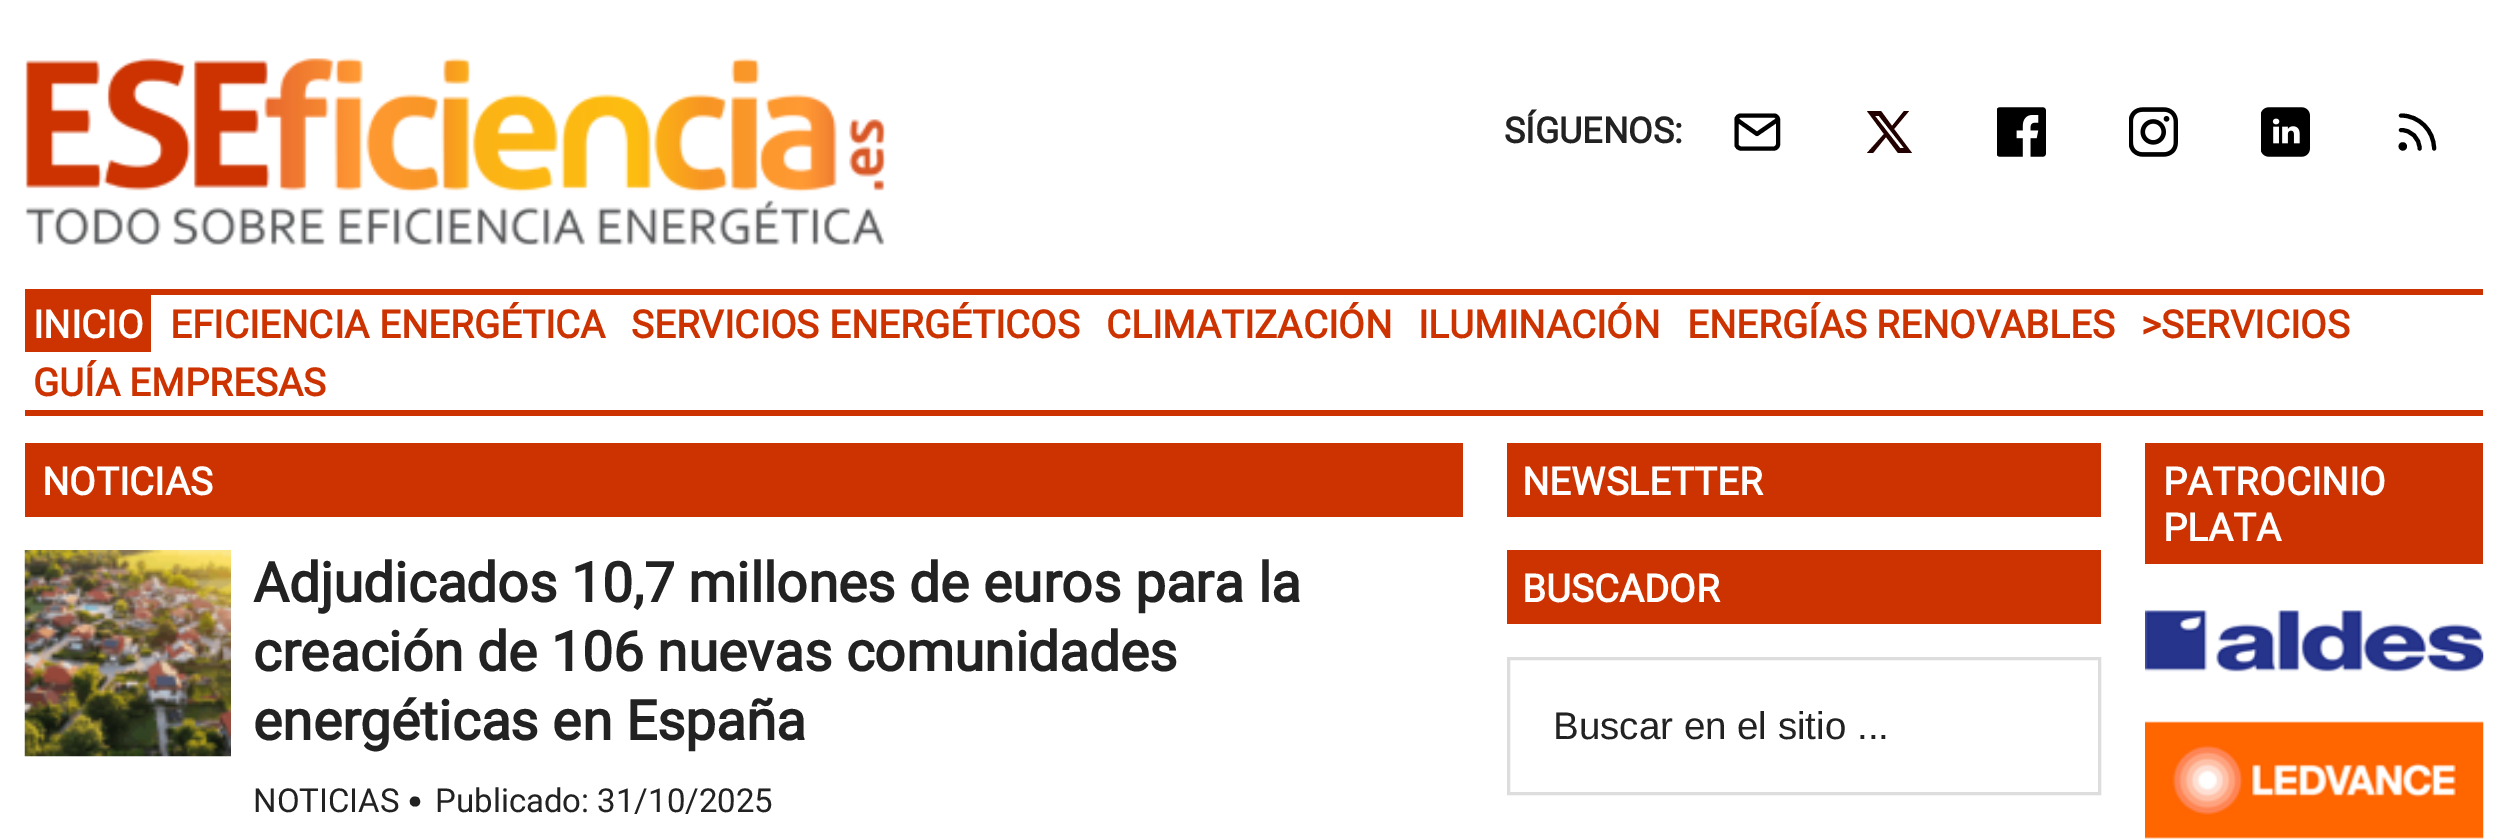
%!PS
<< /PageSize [2506 839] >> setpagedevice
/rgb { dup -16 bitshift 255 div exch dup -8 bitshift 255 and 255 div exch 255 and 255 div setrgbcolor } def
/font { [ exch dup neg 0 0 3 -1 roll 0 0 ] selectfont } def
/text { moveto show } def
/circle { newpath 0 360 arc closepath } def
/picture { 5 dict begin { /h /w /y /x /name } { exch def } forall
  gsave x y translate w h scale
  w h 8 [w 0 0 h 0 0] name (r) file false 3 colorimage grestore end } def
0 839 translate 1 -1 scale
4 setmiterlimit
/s1 { /Roboto-Bold 35.75 font 16#222222 rgb } def
/s2 { /Roboto-Bold 38.5 font 16#FFFFFF rgb } def
/s3 { /Roboto-Bold 38.5 font 16#CC3300 rgb } def
/s4 { /Roboto-Bold 55 font 16#222222 rgb } def
/s5 { /Roboto-Regular 33 font 16#222222 rgb } def
/s6 { /Roboto-Regular 94 font 16#222222 rgb } def
/s7 { /LiberationSans-Regular 38.5 font 16#222222 rgb } def
16#FFFFFF rgb
0 0 2506 839 rectfill
16#CC3300 rgb
25 289 2458 6 rectfill
(pic1.raw) 25 58 861 188 picture
s1
(SÍGUENOS:) 1504 143 text
16#000000 rgb
4.1 setlinewidth
1 setlinecap
1 setlinejoin
1741 115.5 moveto 1774 115.5 lineto 1776 115.5 1778 117.5 1778 119.5 curveto 1778 144.5 lineto 1778 146.5 1776 148.5 1774 148.5 curveto 1741 148.5 lineto 1738.5 148.5 1736.5 146.5 1736.5 144.5 curveto 1736.5 119.5 lineto 1736.5 117.5 1738.5 115.5 1741 115.5 curveto closepath 1778 119.5 moveto 1757 134 lineto 1736.5 119.5 lineto stroke
16#230000 rgb
1881 111 moveto 1867 111 lineto 1884 134 lineto 1867 153 lineto 1873 153 lineto 1886 137 lineto 1898 153 lineto 1912 153 lineto 1894 129 lineto 1909 111 lineto 1904 111 lineto 1892 126 lineto closepath 1900 148 moveto 1875 116 lineto 1879 116 lineto 1904 148 lineto closepath fill
(pic2.raw) 1997 107 49 50 picture
(pic3.raw) 2129 107 49 50 picture
(pic4.raw) 2261 107 49 50 picture
16#000000 rgb
2401 130 moveto 2411 130 2419.5 138 2419.5 148.5 curveto 2401 115.5 moveto 2419 115.5 2434 130.5 2434 148.5 curveto stroke
0 setlinecap
0 setlinejoin
2402.8 146.4 2.1 circle stroke
16#CC3300 rgb
25 410 2458 6 rectfill
25 295 126 57 rectfill
s2
(INICIO) 33 338 text
s3
(EFICIENCIA ENERGÉTICA) 170 338 text
(SERVICIOS ENERGÉTICOS) 631 338 text
(CLIMATIZACIÓN) 1106 338 text
(ILUMINACIÓN) 1418 338 text
(ENERGÍAS RENOVABLES) 1687 338 text
(>SERVICIOS) 2141 338 text
(GUÍA EMPRESAS) 33 396 text
25 443 1438 74 rectfill
s2
(NOTICIAS) 42 495 text
(pic5.raw) 24 550 207 207 picture
s4
(Adjudicados 10,7 millones de euros para la) 253 602 text
(creación de 106 nuevas comunidades) 253 671 text
(energéticas en España) 253 740 text
s5
(NOTICIAS) 253 812 text
s6
(·) 403 835 text
s5
(Publicado: 31/10/2025) 435 812 text
16#CC3300 rgb
1507 443 594 74 rectfill
s2
(NEWSLETTER) 1522 495 text
16#CC3300 rgb
1507 550 594 74 rectfill
s2
(BUSCADOR) 1522 602 text
16#DDDDDD rgb
3 setlinewidth
1508.5 658.5 591 135 rectstroke
s7
(Buscar en el sitio ...) 1553 739 text
16#CC3300 rgb
2145 443 338 121 rectfill
s2
(PATROCINIO) 2163 495 text
(PLATA) 2163 541 text
(pic6.raw) 2145 610 339 62 picture
(pic7.raw) 2145 721 339 118 picture
showpage
